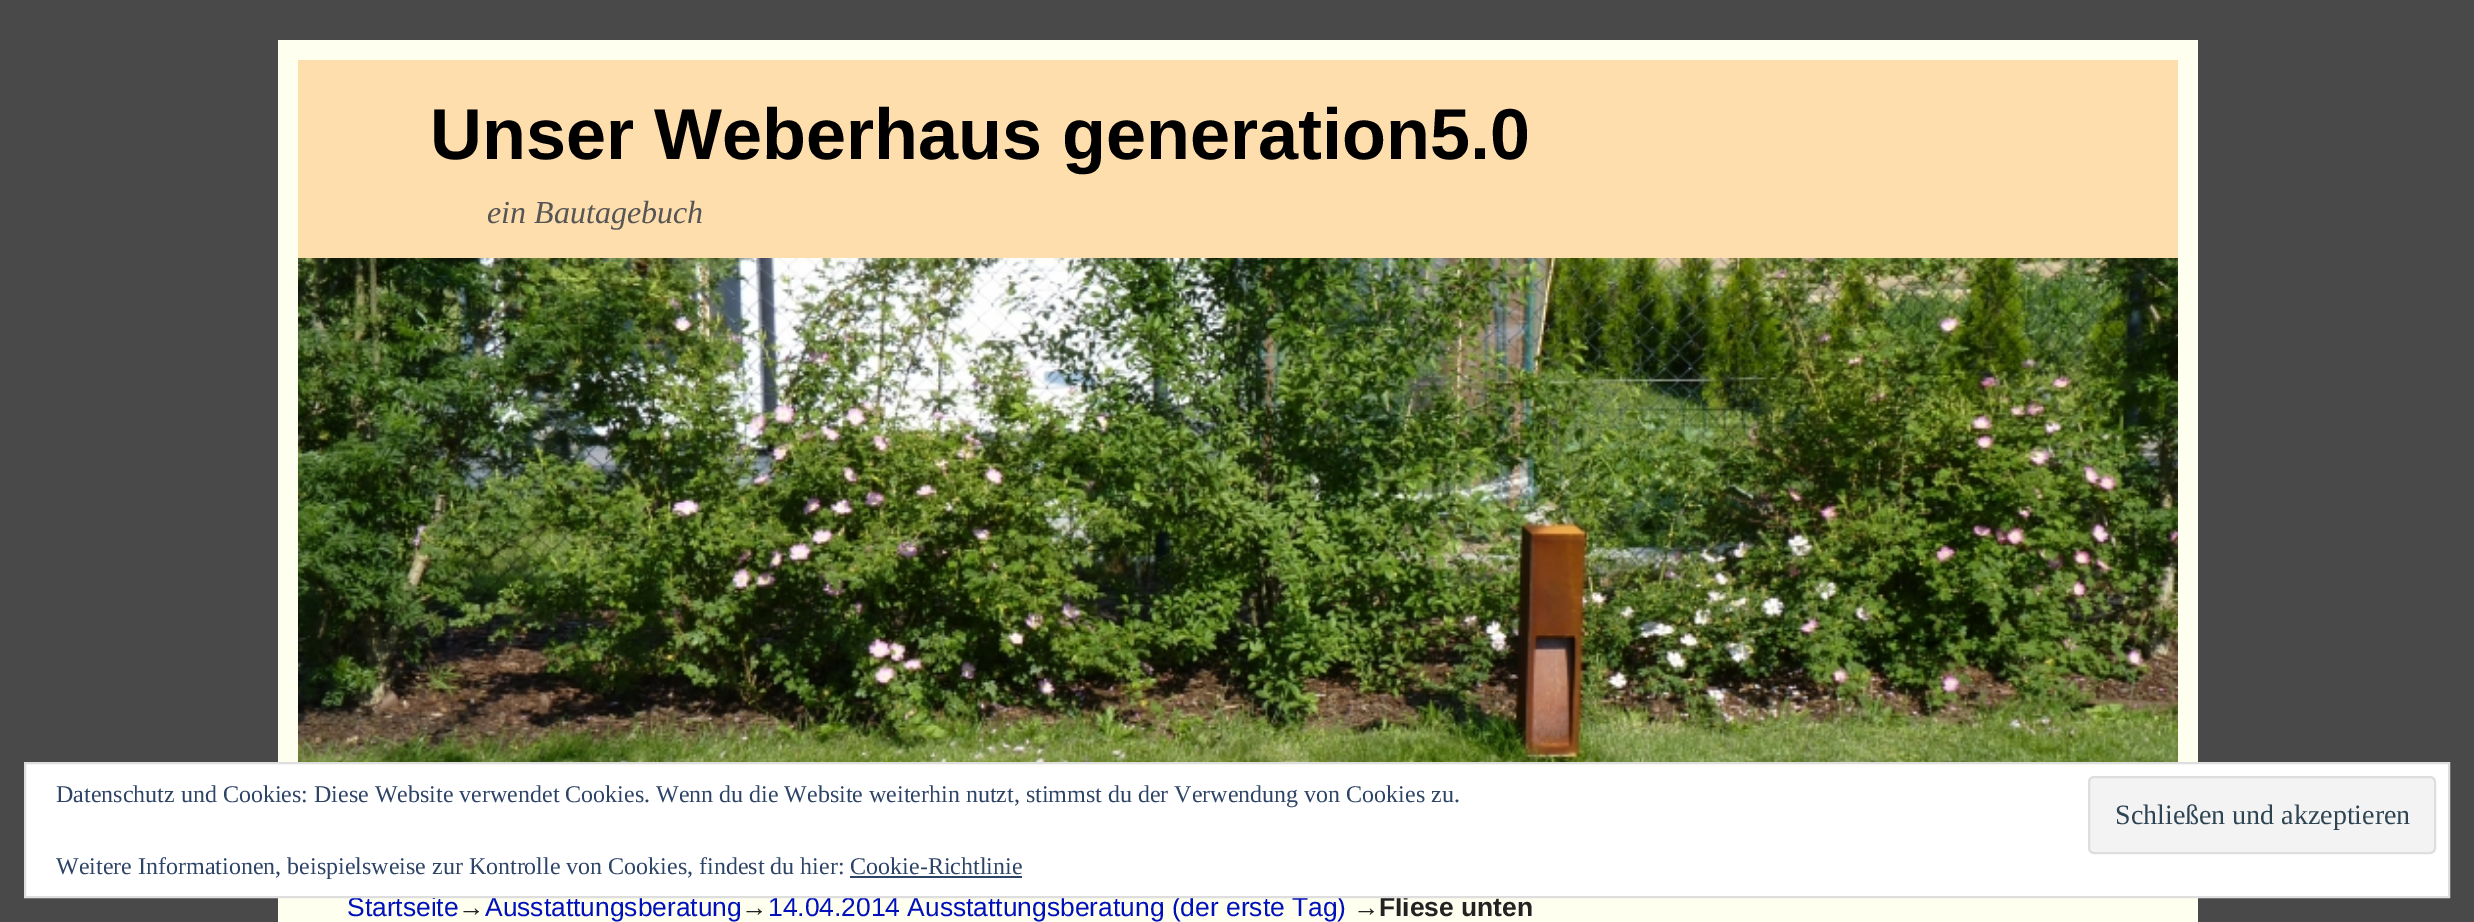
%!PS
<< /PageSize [2474 922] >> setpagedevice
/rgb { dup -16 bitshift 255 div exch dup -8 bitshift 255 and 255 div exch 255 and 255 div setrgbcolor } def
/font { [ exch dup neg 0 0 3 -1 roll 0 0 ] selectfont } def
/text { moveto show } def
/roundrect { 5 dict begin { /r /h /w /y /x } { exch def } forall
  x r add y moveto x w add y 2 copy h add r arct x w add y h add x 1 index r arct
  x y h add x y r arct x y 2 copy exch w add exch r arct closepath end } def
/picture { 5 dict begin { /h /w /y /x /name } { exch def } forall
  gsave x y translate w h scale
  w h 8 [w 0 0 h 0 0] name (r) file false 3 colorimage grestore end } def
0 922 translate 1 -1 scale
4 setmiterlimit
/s1 { /LiberationSans-Bold 72 font 16#000000 rgb } def
/s2 { /LiberationSerif-Italic 32 font 16#555555 rgb } def
/s3 { /LiberationSans-Regular 26.4 font 16#0011BB rgb } def
/s4 { /LiberationSans-Regular 26.4 font 16#222222 rgb } def
/s5 { /LiberationSans-Bold 26.4 font 16#222222 rgb } def
/s6 { /LiberationSerif-Regular 24 font 16#2E4467 rgb } def
/s7 { /LiberationSerif-Regular 28 font 16#2E4453 rgb } def
16#494949 rgb
0 0 2474 922 rectfill
16#FFFFF0 rgb
278 40 1920 882 rectfill
16#FFDEAD rgb
298 60 1880 198 rectfill
s1
(Unser Weberhaus generation5.0) 430 159 text
s2
(ein Bautagebuch) 487 223 text
(pic1.raw) 298 258 1880 504 picture
s3
(Startseite) 347 916 text
s4
(→) 458 916 text
s3
(Ausstattungsberatung) 485 916 text
s4
(→) 741 916 text
s3
(14.04.2014 Ausstattungsberatung \(der erste Tag\)) 768 916 text
s4
(→) 1353 916 text
s5
(Fliese unten) 1379 916 text
16#FFFFFF rgb
25 763 moveto 2449 763 lineto 2449 897 lineto 25 897 lineto closepath gsave fill grestore
16#DEDEDE rgb
2 setlinewidth
stroke
s6
(Datenschutz und Cookies: Diese Website verwendet Cookies. Wenn du die Website weiterhin nutzt, stimmst du der Verwendung von Cookies zu.) 56 802 text
16#F3F3F3 rgb
2089 777 346 76 5 roundrect gsave fill grestore
16#DEDEDE rgb
stroke
s7
(Schließen und akzeptieren) 2115 824 text
s6
(Weitere Informationen, beispielsweise zur Kontrolle von Cookies, findest du hier: Cookie-Richtlinie) 56 874 text
850 876 172 2 rectfill
showpage
